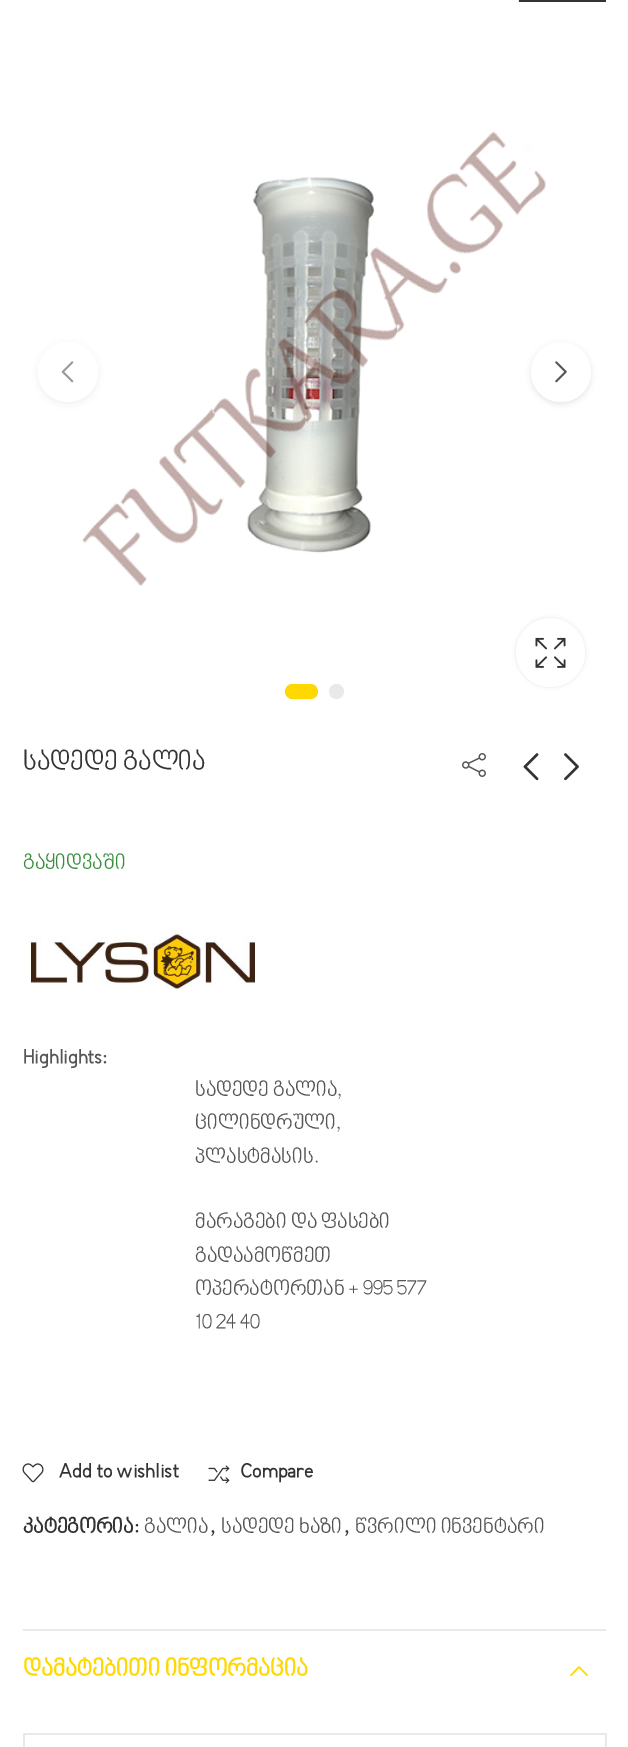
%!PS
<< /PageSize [628 1747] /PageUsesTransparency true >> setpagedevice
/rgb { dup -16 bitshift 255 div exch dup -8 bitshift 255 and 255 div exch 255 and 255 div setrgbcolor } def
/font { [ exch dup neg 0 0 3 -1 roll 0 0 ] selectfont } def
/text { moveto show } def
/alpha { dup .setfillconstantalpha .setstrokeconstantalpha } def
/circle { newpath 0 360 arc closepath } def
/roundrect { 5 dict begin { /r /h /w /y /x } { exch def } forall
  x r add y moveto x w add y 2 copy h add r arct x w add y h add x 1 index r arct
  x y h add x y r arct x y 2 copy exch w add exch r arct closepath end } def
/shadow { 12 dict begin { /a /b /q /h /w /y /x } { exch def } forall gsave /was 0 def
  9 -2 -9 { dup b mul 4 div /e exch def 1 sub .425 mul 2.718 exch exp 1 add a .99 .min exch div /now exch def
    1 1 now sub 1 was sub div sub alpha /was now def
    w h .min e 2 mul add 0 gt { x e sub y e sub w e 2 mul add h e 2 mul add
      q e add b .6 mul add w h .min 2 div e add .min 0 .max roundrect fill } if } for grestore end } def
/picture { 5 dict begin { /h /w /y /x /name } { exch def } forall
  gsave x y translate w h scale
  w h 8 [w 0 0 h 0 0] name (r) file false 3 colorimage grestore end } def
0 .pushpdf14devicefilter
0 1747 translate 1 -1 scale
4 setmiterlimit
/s1 { /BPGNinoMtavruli-Regular 27 font 16#333333 rgb } def
/s2 { /BPGNinoMtavruli-Regular 21 font 16#388E3C rgb } def
/s3 { /BPGNinoMtavruli-Bold 21 font 16#555555 rgb } def
/s4 { /BPGNinoMtavruli-Regular 21 font 16#555555 rgb } def
/s5 { /BPGNinoMtavruli-Bold 21 font 16#333333 rgb } def
/s6 { /BPGNinoMtavruli-Bold 24 font 16#FFD801 rgb } def
16#FFFFFF rgb
0 0 628 1747 rectfill
16#E9E9E9 rgb
518 0 2 2 rectfill
16#333333 rgb
519 0 87 2 rectfill
(pic2.raw) 82 131 464 455 picture
16#666666 rgb
38 344 60 60 30 3 0.1 shadow
16#FFFFFF rgb
68 372 30 circle fill
(pic1.raw) 61 361 13 22 picture
16#000000 rgb
531 344 60 60 30 3 0.1 shadow
16#FFFFFF rgb
561 372 30 circle fill
(pic3.raw) 555 361 12 22 picture
16#FFD801 rgb
285 684 33 15 7.5 roundrect fill
16#E9E9E9 rgb
336.5 691.5 7.5 circle fill
16#000000 rgb
516 618 69 69 34.5 2 0.1 shadow
16#FFFFFF rgb
550.5 652.5 34.5 circle fill
(pic4.raw) 535 637 31 31 picture
s1
(სადედე გალია) 23 771 text
(pic5.raw) 462 753 24 24 picture
(pic6.raw) 523 753 16 28 picture
(pic7.raw) 564 753 15 28 picture
s2
(გაყიდვაში) 23 870 text
(pic8.raw) 28 930 228 59 picture
s3
(Highlights:) 23 1065 text
s4
(სადედე გალია,) 195 1097 text
(ცილინდრული,) 195 1130 text
(პლასტმასის.) 195 1164 text
(მარაგები და ფასები) 195 1229 text
(გადაამოწმეთ) 195 1263 text
(ოპერატორთან + 995 577) 195 1296 text
(10 24 40) 195 1330 text
(pic9.raw) 22 1463 22 20 picture
s5
(Add to wishlist) 58 1479 text
(pic10.raw) 208 1465 22 19 picture
(Compare) 240 1479 text
(კატეგორია:) 23 1534 text
s4
(გალია) 144 1534 text
s5
(,) 210 1534 text
s4
(სადედე ხაზი) 221 1534 text
s5
(,) 344 1534 text
s4
(წვრილი ინვენტარი) 355 1534 text
16#E9E9E9 rgb
23 1629 583 2 rectfill
s6
(დამატებითი ინფორმაცია) 23 1677 text
(pic11.raw) 570 1666 18 10 picture
16#E9E9E9 rgb
23 1733 583 2 rectfill
605 1733 2 14 rectfill
23 1733 2 14 rectfill
.poppdf14devicefilter showpage
